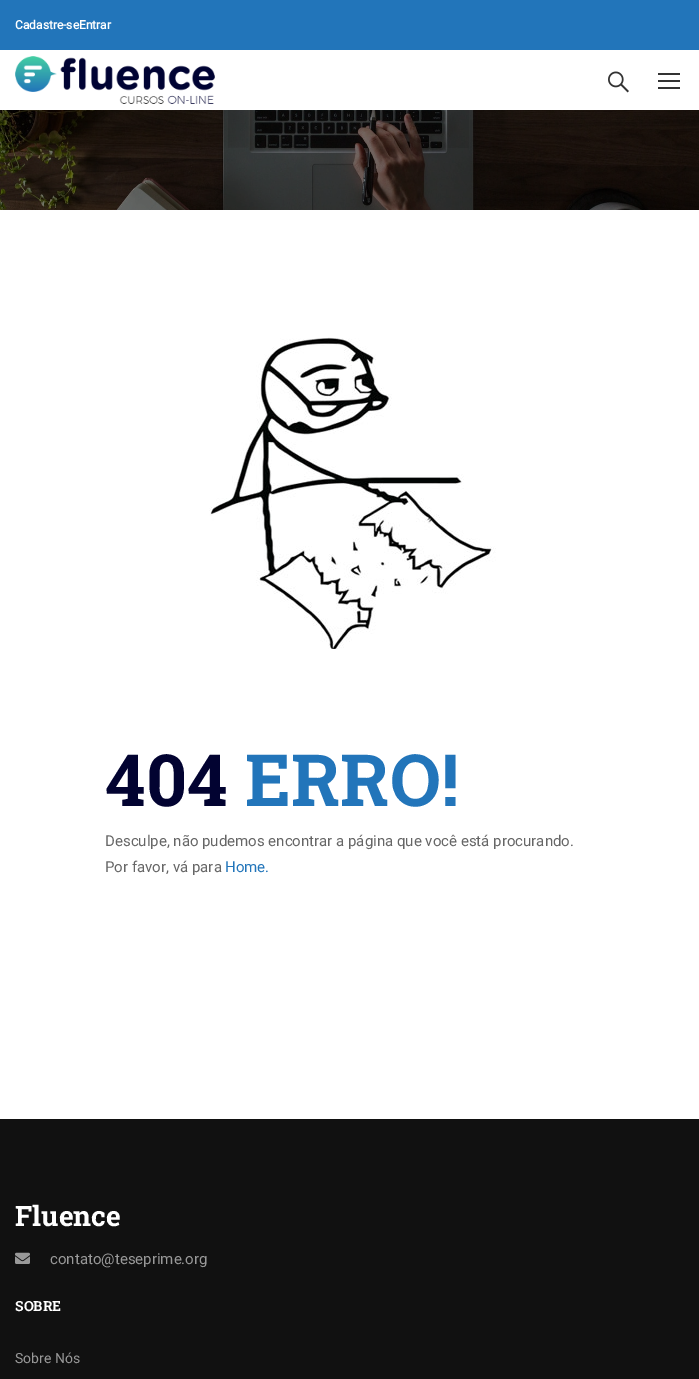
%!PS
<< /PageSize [699 1379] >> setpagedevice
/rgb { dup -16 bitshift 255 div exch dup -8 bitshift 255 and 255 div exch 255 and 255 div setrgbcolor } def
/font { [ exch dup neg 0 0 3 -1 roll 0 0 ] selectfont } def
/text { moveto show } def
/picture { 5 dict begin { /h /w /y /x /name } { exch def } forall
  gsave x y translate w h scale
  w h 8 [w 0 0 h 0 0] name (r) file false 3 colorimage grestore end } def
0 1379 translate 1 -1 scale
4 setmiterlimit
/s1 { /Roboto-Bold 12 font 16#FFFFFF rgb } def
/s2 { /RobotoSlab-Bold 72 font 16#020331 rgb } def
/s3 { /RobotoSlab-Bold 72 font 16#2275BA rgb } def
/s4 { /Roboto-Regular 15 font 16#666666 rgb } def
/s5 { /Roboto-Regular 15 font 16#2275BA rgb } def
/s6 { /RobotoSlab-Bold 28 font 16#FFFFFF rgb } def
/s7 { /Roboto-Regular 15 font 16#999999 rgb } def
/s8 { /RobotoSlab-Bold 14 font 16#FFFFFF rgb } def
/s9 { /Roboto-Regular 14 font 16#999999 rgb } def
16#FFFFFF rgb
0 0 699 1379 rectfill
16#2275BA rgb
0 0 699 50 rectfill
s1
(Cadastre-seEntrar) 15 29 text
(pic1.raw) 15 56 200 48 picture
(pic2.raw) 608 71 21 22 picture
16#333333 rgb
658 73 22 2 rectfill
658 80 22 2 rectfill
658 87 22 2 rectfill
(pic3.raw) 0 110 699 100 picture
(pic4.raw) 209 337 287 312 picture
s2
(404) 105 806 text
s3
(ERRO!) 245 806 text
s4
(Desculpe, não pudemos encontrar a página que você está procurando.) 105 846 text
(Por favor, vá para) 105 872 text
s5
(Home.) 225 872 text
16#111111 rgb
0 1119 699 260 rectfill
s6
(Fluence) 15 1226 text
(pic5.raw) 15 1252 15 12 picture
s7
(contato@teseprime.org) 50 1264 text
s8
(SOBRE) 15 1311 text
s9
(Sobre Nós) 15 1363 text
showpage
